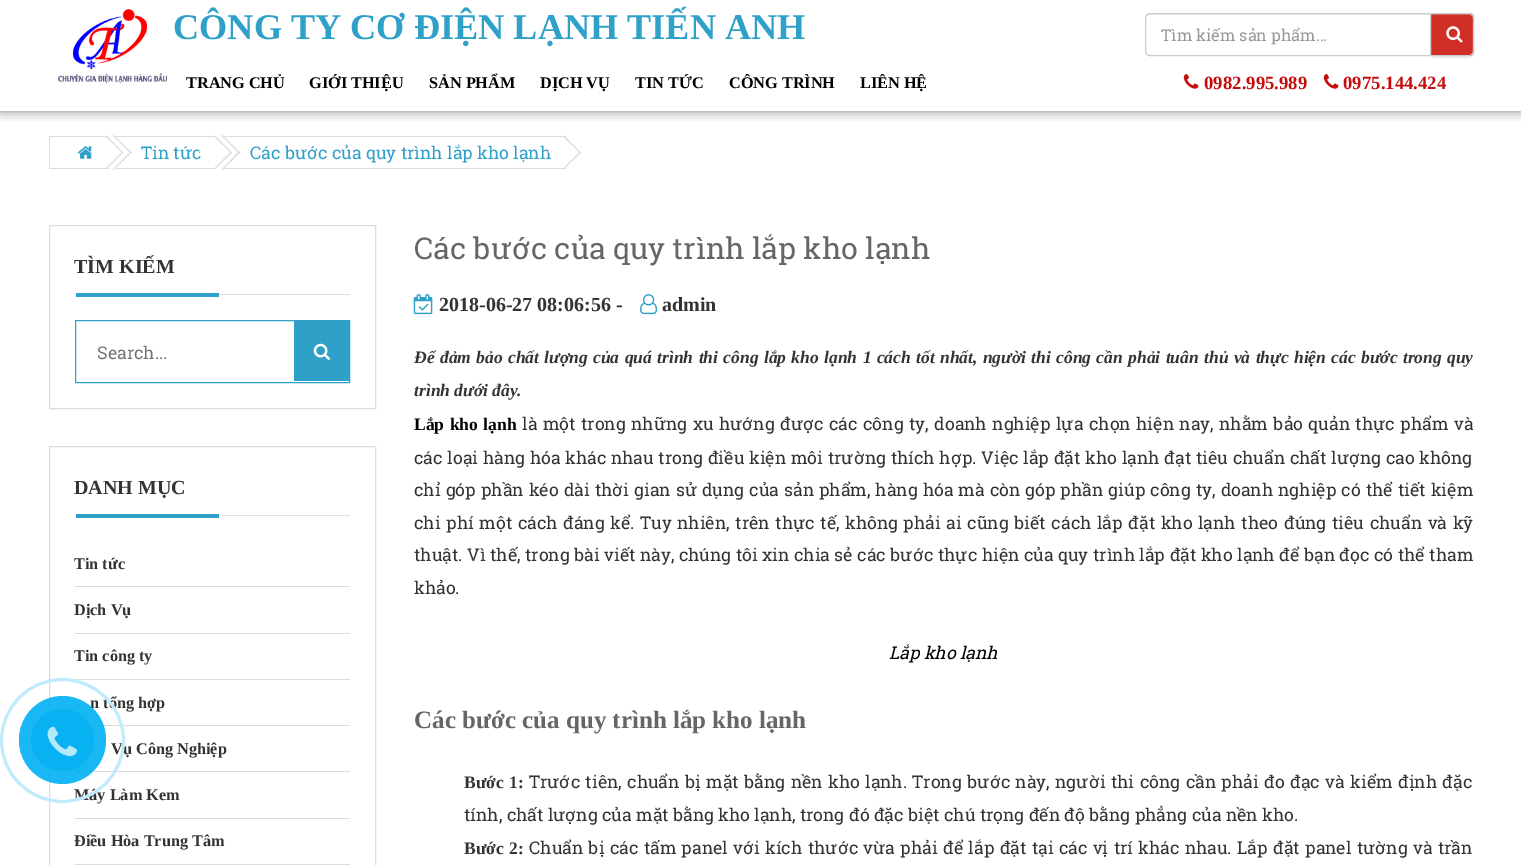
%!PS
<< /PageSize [1521 865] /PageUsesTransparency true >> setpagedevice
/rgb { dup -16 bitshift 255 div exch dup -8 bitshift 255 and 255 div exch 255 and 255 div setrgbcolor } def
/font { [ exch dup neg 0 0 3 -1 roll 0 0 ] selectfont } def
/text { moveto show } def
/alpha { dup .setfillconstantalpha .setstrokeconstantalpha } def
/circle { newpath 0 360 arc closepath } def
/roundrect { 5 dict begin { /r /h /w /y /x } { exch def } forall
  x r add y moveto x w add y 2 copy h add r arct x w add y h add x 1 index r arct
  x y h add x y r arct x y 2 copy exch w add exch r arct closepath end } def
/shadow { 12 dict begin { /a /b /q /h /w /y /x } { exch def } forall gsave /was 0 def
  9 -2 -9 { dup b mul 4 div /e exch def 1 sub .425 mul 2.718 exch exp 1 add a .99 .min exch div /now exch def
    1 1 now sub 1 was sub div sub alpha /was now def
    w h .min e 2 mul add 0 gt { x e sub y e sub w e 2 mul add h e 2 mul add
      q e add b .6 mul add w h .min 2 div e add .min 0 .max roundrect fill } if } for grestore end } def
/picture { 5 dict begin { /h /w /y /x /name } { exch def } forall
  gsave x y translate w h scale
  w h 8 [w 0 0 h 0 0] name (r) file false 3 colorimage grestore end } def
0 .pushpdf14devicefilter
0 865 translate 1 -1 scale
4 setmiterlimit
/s1 { /LiberationSerif-Bold 36.25 font 16#2FA0C8 rgb } def
/s2 { /LiberationSerif-Bold 16.25 font 16#000000 rgb } def
/s3 { /RobotoSlab-Regular 16.25 font 16#999999 rgb } def
/s4 { /LiberationSerif-Bold 18.75 font 16#C50D0B rgb } def
/s5 { /LiberationSerif-Bold 16.25 font 16#333333 rgb } def
/s6 { /RobotoSlab-Regular 17.5 font 16#2FA0C8 rgb } def
/s7 { /LiberationSerif-Bold 20 font 16#333333 rgb } def
/s8 { /RobotoSlab-Regular 17.5 font 16#757575 rgb } def
/s9 { /RobotoSlab-Regular 30 font 16#666666 rgb } def
/s10 { /LiberationSerif-BoldItalic 17.5 font 16#333333 rgb } def
/s11 { /RobotoSlab-Regular 17.5 font 16#333333 rgb } def
/s12 { /RobotoSlab-Italic 17.5 font 16#000000 rgb } def
/s13 { /LiberationSerif-Bold 25 font 16#666666 rgb } def
16#FFFFFF rgb
0 0 1521 865 rectfill
gsave
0 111 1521 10 rectclip
16#000000 rgb
0 0 1521 111 0 6 0.5 shadow
grestore
(pic1.raw) 58 9 109 75 picture
s1
(CÔNG TY CƠ ĐIỆN LẠNH TIẾN ANH) 173 39 text
s2
(TRANG CHỦ) 186 88 text
(GIỚI THIỆU) 309 88 text
(SẢN PHẨM) 429 88 text
(DỊCH VỤ) 540 88 text
(TIN TỨC) 635 88 text
(CÔNG TRÌNH) 729 88 text
(LIÊN HỆ) 860 88 text
16#ECECEC rgb
1150 15 moveto 1430 15 lineto 1430 14 lineto 1150 14 lineto 1147 14 1146 16 1146 19 curveto 1146 17 1148 15 1150 15 curveto closepath fill
16#CCCCCC rgb
1150 13.5 moveto 1430.5 13.5 lineto 1430.5 55.5 lineto 1150 55.5 lineto 1147.5 55.5 1145.5 53.5 1145.5 51 curveto 1145.5 18 lineto 1145.5 15.5 1147.5 13.5 1150 13.5 curveto closepath stroke
s3
(Tìm kiếm sản phẩm...) 1161 41 text
16#000000 rgb
1430 14 44 44 5 0.5 0.07 shadow
16#D02F27 rgb
1430 13 moveto 1469 13 lineto 1472 13 1474 15 1474 18 curveto 1474 51 lineto 1474 54 1472 56 1469 56 curveto 1430 56 lineto closepath fill
16#D74E47 rgb
1431 15 moveto 1470 15 lineto 1474 16 1472 28 1472 30 curveto 1472 54 lineto 1473 53 1473 52 1473 51 curveto 1473 18 lineto 1473 16 1471 14 1469 14 curveto 1431 14 lineto closepath fill
16#CCCCCC rgb
1430.5 13.5 moveto 1469 13.5 lineto 1471.5 13.5 1473.5 15.5 1473.5 18 curveto 1473.5 51 lineto 1473.5 53.5 1471.5 55.5 1469 55.5 curveto 1430.5 55.5 lineto closepath stroke
(pic2.raw) 1446 26 17 17 picture
(pic3.raw) 1183 74 16 15 picture
s4
(0982.995.989) 1204 89 text
(pic3.raw) 1323 74 16 15 picture
(0975.144.424) 1343 89 text
16#DCDCDC rgb
49.5 446.5 326 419 rectstroke
75 679 275 1 rectfill
75 725 275 1 rectfill
s5
(n tổng hợp) 90 708 text
16#DCDCDC rgb
75 771 275 1 rectfill
s5
(Vụ Công Nghiệp) 111 754 text
(Máy Làm Kem) 74 800 text
16#BFEBFC rgb
3 setlinewidth
62.5 740.5 61 circle stroke
0.9 alpha
16#00AFF2 rgb
19 696 87 88 43.5 roundrect fill
0.7 alpha
31 709 63 62 31 roundrect fill
1 alpha
(pic4.raw) 47 726 30 31 picture
16#DDDBDE rgb
49 136 60 1 rectfill
49 168 60 1 rectfill
49 136 1 33 rectfill
(pic5.raw) 77 146 16 13 picture
113 136 103 1 rectfill
113 168 103 1 rectfill
16#FFFFFF rgb
96 152.5 moveto 113.5 135 lineto 131.5 152.5 lineto 113.5 170 lineto closepath fill
16#DDDDDD rgb
113 135.5 moveto 113.5 135 lineto 131.5 152.5 lineto 130.5 153.5 lineto closepath fill
113 169.5 moveto 130.5 151.5 lineto 131.5 152.5 lineto 113.5 170 lineto closepath fill
16#FFFFFF rgb
90.5 151.5 moveto 106.5 135.5 lineto 123 152.5 lineto 107.5 168 lineto closepath fill
16#DDDDDD rgb
105.5 136.5 moveto 106.5 135.5 lineto 123 152.5 lineto 122.5 153 lineto closepath fill
106.5 167.5 moveto 122.5 151.5 lineto 123 152.5 lineto 107.5 168 lineto closepath fill
s6
(Tin tức) 141 159 text
16#DDDBDE rgb
221 136 345 1 rectfill
221 168 345 1 rectfill
16#FFFFFF rgb
204.5 152.5 moveto 222.5 135 lineto 240 152.5 lineto 222.5 170 lineto closepath fill
16#DDDDDD rgb
221.5 135.5 moveto 222.5 135 lineto 240 152.5 lineto 239 153.5 lineto closepath fill
221.5 169.5 moveto 239 151.5 lineto 240 152.5 lineto 222.5 170 lineto closepath fill
16#FFFFFF rgb
199 151.5 moveto 215 135.5 lineto 232 152.5 lineto 216 168 lineto closepath fill
16#DDDDDD rgb
214 136.5 moveto 215 135.5 lineto 232 152.5 lineto 231 153 lineto closepath fill
215 167.5 moveto 231 151.5 lineto 232 152.5 lineto 216 168 lineto closepath fill
s6
(Các bước của quy trình lắp kho lạnh) 250 159 text
16#FFFFFF rgb
548 151.5 moveto 564 135.5 lineto 581 152.5 lineto 565 168 lineto closepath fill
16#DDDDDD rgb
563 136.5 moveto 564 135.5 lineto 581 152.5 lineto 580 153 lineto closepath fill
564 167.5 moveto 580 151.5 lineto 581 152.5 lineto 565 168 lineto closepath fill
16#DCDCDC rgb
1 setlinewidth
49.5 225.5 326 183 rectstroke
16#E1E1E1 rgb
75 294 275 1 rectfill
s7
(TÌM KIẾM) 74 273 text
16#2FA0C8 rgb
76 293 143 4 rectfill
75.5 320.5 274 62 rectstroke
s8
(Search...) 97 359 text
16#2FA0C8 rgb
294 321 55 60 rectfill
(pic6.raw) 313 343 17 17 picture
16#E1E1E1 rgb
75 515 275 1 rectfill
s7
(DANH MỤC) 74 494 text
16#2FA0C8 rgb
76 514 143 4 rectfill
16#DCDCDC rgb
75 586 275 1 rectfill
s5
(Tin tức) 74 569 text
16#DCDCDC rgb
75 633 275 1 rectfill
s5
(Dịch Vụ) 74 615 text
(Tin công ty) 74 661 text
16#DCDCDC rgb
75 818 275 1 rectfill
75 864 275 1 rectfill
s5
(Điều Hòa Trung Tâm) 74 846 text
s9
(Các bước của quy trình lắp kho lạnh) 414 259 text
(pic7.raw) 413 294 20 21 picture
s7
(2018-06-27 08:06:56) 439 311 text
(-) 616 311 text
(pic8.raw) 640 294 18 21 picture
(admin) 662 311 text
/LiberationSerif-BoldItalic 17.5 font
414 363 moveto 1 0 32 (Để đảm bảo chất lượng của quá trình thi công lắp kho lạnh 1 cách tốt nhất, người thi công cần phải tuân thủ và thực hiện các bước trong quy) widthshow
(trình dưới đây.) 414 396 text
/LiberationSerif-Bold 17.5 font
16#000000 rgb
414 430 moveto 1.15 0 32 (Lắp kho lạnh) widthshow
/RobotoSlab-Regular 17.5 font
16#333333 rgb
522 430 moveto 1.15 0 32 (là một trong những xu hướng được các công ty, doanh nghiệp lựa chọn hiện nay, nhằm bảo quản thực phẩm và) widthshow
414 464 moveto 0.4 0 32 (các loại hàng hóa khác nhau trong điều kiện môi trường thích hợp. Việc lắp đặt kho lạnh đạt tiêu chuẩn chất lượng cao không) widthshow
414 496 moveto 0.7 0 32 (chỉ góp phần kéo dài thời gian sử dụng của sản phẩm, hàng hóa mà còn góp phần giúp công ty, doanh nghiệp có thể tiết kiệm) widthshow
414 529 moveto 1.25 0 32 (chi phí một cách đáng kể. Tuy nhiên, trên thực tế, không phải ai cũng biết cách lắp đặt kho lạnh theo đúng tiêu chuẩn và kỹ) widthshow
414 561 moveto 0.15 0 32 (thuật. Vì thế, trong bài viết này, chúng tôi xin chia sẻ các bước thực hiện của quy trình lắp đặt kho lạnh để bạn đọc có thể tham) widthshow
(khảo.) 414 594 text
s12
(Lắp kho lạnh) 889 659 text
s13
(Các bước của quy trình lắp kho lạnh) 414 728 text
/LiberationSerif-Bold 17.5 font
16#333333 rgb
464 788 moveto 1 0 32 (Bước 1:) widthshow
/RobotoSlab-Regular 17.5 font
529 788 moveto 1.1 0 32 (Trước tiên, chuẩn bị mặt bằng nền kho lạnh. Trong bước này, người thi công cần phải đo đạc và kiểm định đặc) widthshow
(tính, chất lượng của mặt bằng kho lạnh, trong đó đặc biệt chú trọng đến độ bằng phẳng của nền kho.) 464 821 text
/LiberationSerif-Bold 17.5 font
464 854 moveto 1 0 32 (Bước 2:) widthshow
/RobotoSlab-Regular 17.5 font
529 854 moveto 1 0 32 (Chuẩn bị các tấm panel với kích thước vừa phải để lắp đặt tại các vị trí khác nhau. Lắp đặt panel tường và trần) widthshow
.poppdf14devicefilter showpage
